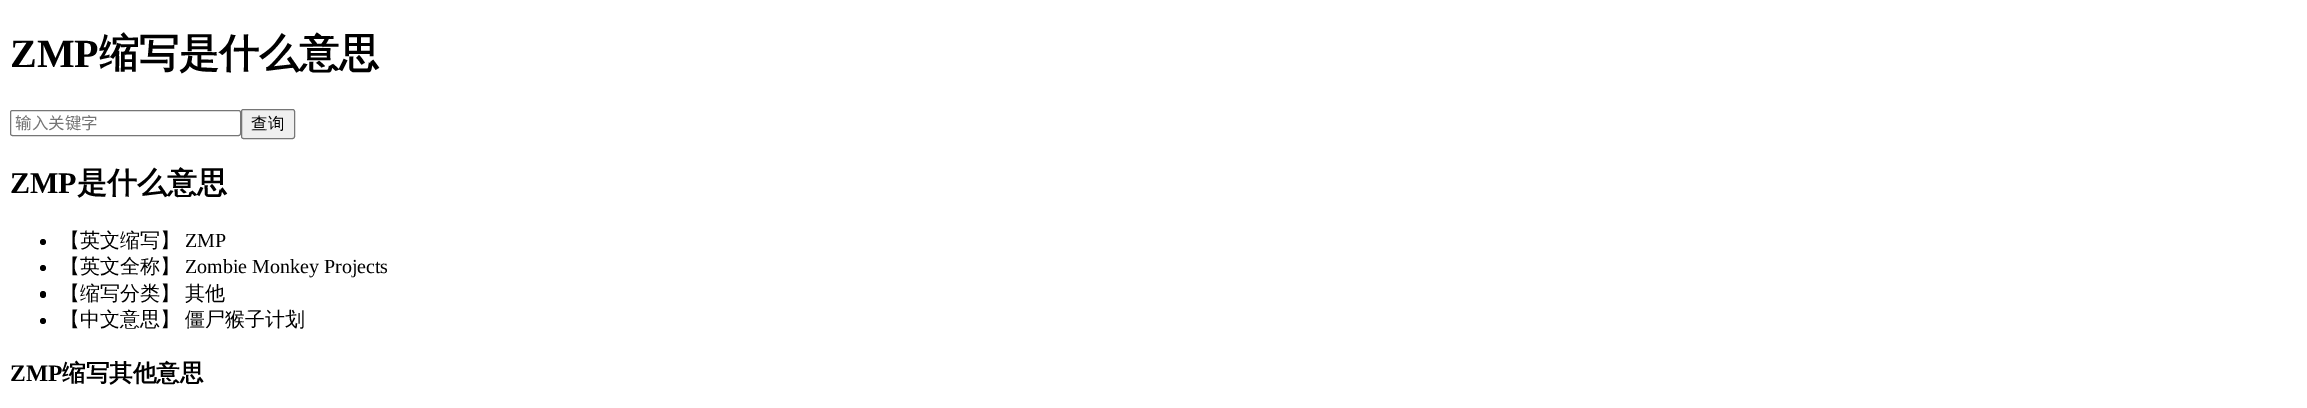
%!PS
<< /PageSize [2307 408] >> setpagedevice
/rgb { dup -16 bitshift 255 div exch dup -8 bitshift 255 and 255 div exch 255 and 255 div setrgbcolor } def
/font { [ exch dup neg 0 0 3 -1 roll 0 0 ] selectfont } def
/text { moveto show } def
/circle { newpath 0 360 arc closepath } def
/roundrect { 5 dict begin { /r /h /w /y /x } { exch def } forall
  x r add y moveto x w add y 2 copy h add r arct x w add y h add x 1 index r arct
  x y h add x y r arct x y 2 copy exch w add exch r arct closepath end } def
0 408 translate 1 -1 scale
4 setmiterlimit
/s1 { /LiberationSerif-Bold 40 font 16#000000 rgb } def
/s2 { /WenQuanYiZenHei-Bold 40 font 16#000000 rgb } def
/s3 { /NotoSansCJKSC-Regular 16.5 font 16#757575 rgb } def
/s4 { /WenQuanYiZenHei-Medium 16.5 font 16#000000 rgb } def
/s5 { /LiberationSerif-Bold 30 font 16#000000 rgb } def
/s6 { /WenQuanYiZenHei-Bold 30 font 16#000000 rgb } def
/s7 { /WenQuanYiZenHei-Medium 20 font 16#000000 rgb } def
/s8 { /LiberationSerif-Regular 20 font 16#000000 rgb } def
/s9 { /LiberationSerif-Bold 23.5 font 16#000000 rgb } def
/s10 { /WenQuanYiZenHei-Bold 23.5 font 16#000000 rgb } def
16#FFFFFF rgb
0 0 2307 408 rectfill
s1
(ZMP) 10 67 text
s2
(缩写是什么意思) 99 67 text
16#767676 rgb
10.5 110.5 230 25 2 roundrect stroke
s3
(输入关键字) 15 129 text
16#EFEFEF rgb
241.5 109.5 53 29 2 roundrect gsave fill grestore
16#767676 rgb
stroke
s4
(查询) 251 129 text
s5
(ZMP) 10 193 text
s6
(是什么意思) 77 193 text
43 242 3 circle fill
s7
(【英文缩写】) 60 247 text
s8
(ZMP) 185 247 text
43 268 3 circle fill
s7
(【英文全称】) 60 273 text
s8
(Zombie Monkey Projects) 185 273 text
40 291 6 7 3 roundrect fill
s7
(【缩写分类) 60 300 text
160 300 moveto -1 0 32 (】 其他) widthshow
43 321 3 circle fill
(【中文意思) 60 326 text
160 326 moveto -1 0 32 (】 僵尸猴子计划) widthshow
s9
(ZMP) 10 381 text
s10
(缩写其他意思) 62 381 text
showpage
